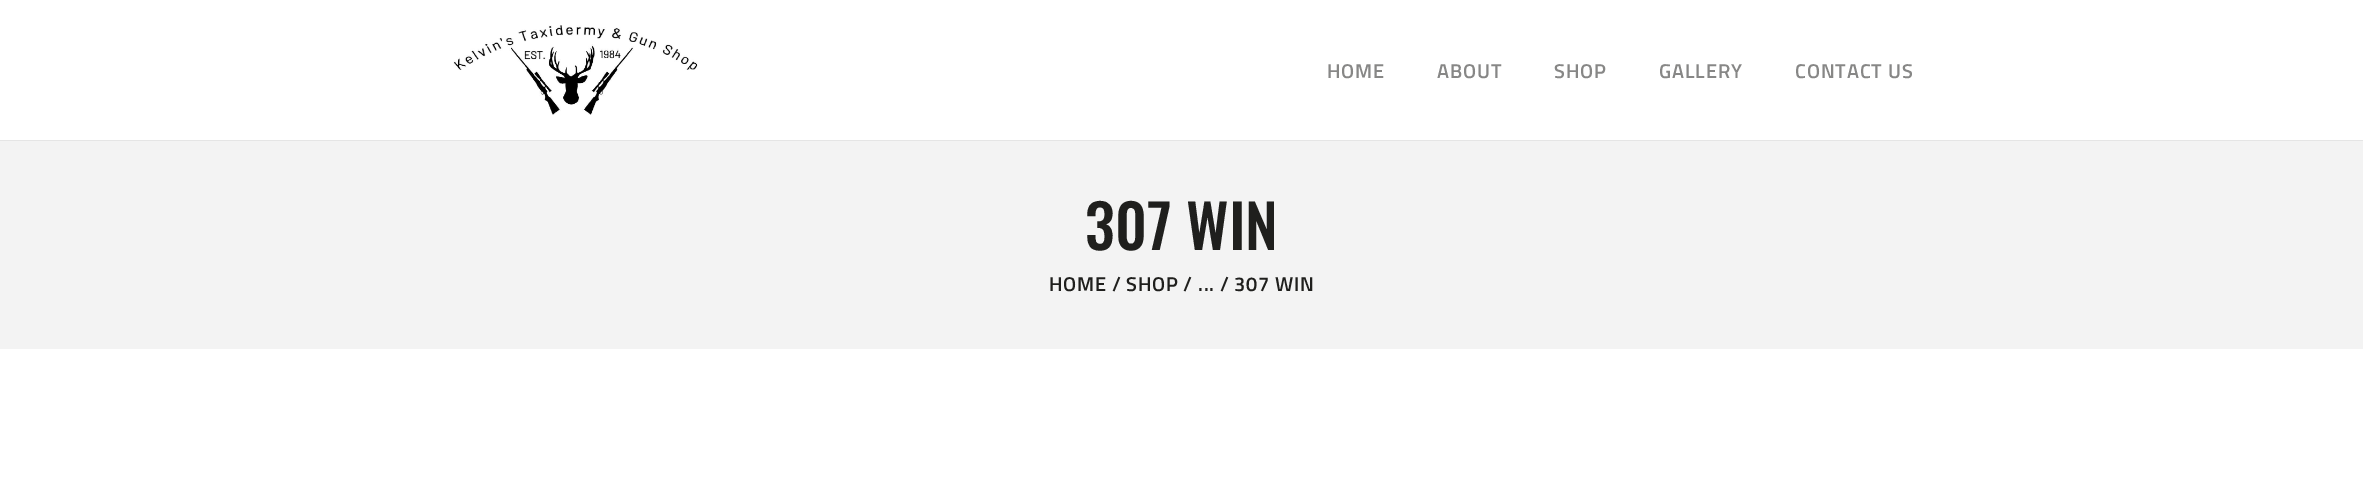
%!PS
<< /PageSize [2363 484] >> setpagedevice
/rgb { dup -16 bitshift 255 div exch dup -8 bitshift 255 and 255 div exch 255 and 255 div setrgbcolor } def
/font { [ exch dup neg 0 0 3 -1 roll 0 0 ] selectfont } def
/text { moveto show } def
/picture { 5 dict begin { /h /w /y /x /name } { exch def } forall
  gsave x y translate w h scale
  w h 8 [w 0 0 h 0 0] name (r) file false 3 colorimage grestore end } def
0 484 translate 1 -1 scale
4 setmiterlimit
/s1 { /Oswald-Medium 60 font 16#1F1F1D rgb } def
16#FFFFFF rgb
0 0 2363 484 rectfill
16#E5E5E5 rgb
0 140 2363 1 rectfill
(pic1.raw) 453 25 245 90 picture
/TitilliumWeb-SemiBold 20 font
16#878786 rgb
1327 78 moveto 0.9 0 (HOME) ashow
1437 78 moveto 0.9 0 (ABOUT) ashow
1554 78 moveto 0.9 0 (SHOP) ashow
1659 78 moveto 0.9 0 (GALLERY) ashow
1795 78 moveto 0.9 0 (CONTACT US) ashow
16#F3F3F3 rgb
0 141 2363 208 rectfill
s1
(307 WIN) 1085 250 text
/TitilliumWeb-SemiBold 20 font
1049 291 moveto 0.75 0 (HOME /) ashow
1126 291 moveto 0.75 0 (SHOP /) ashow
1198 291 moveto 0.75 0 (... /) ashow
1234 291 moveto 0.75 0 (307 WIN) ashow
showpage
